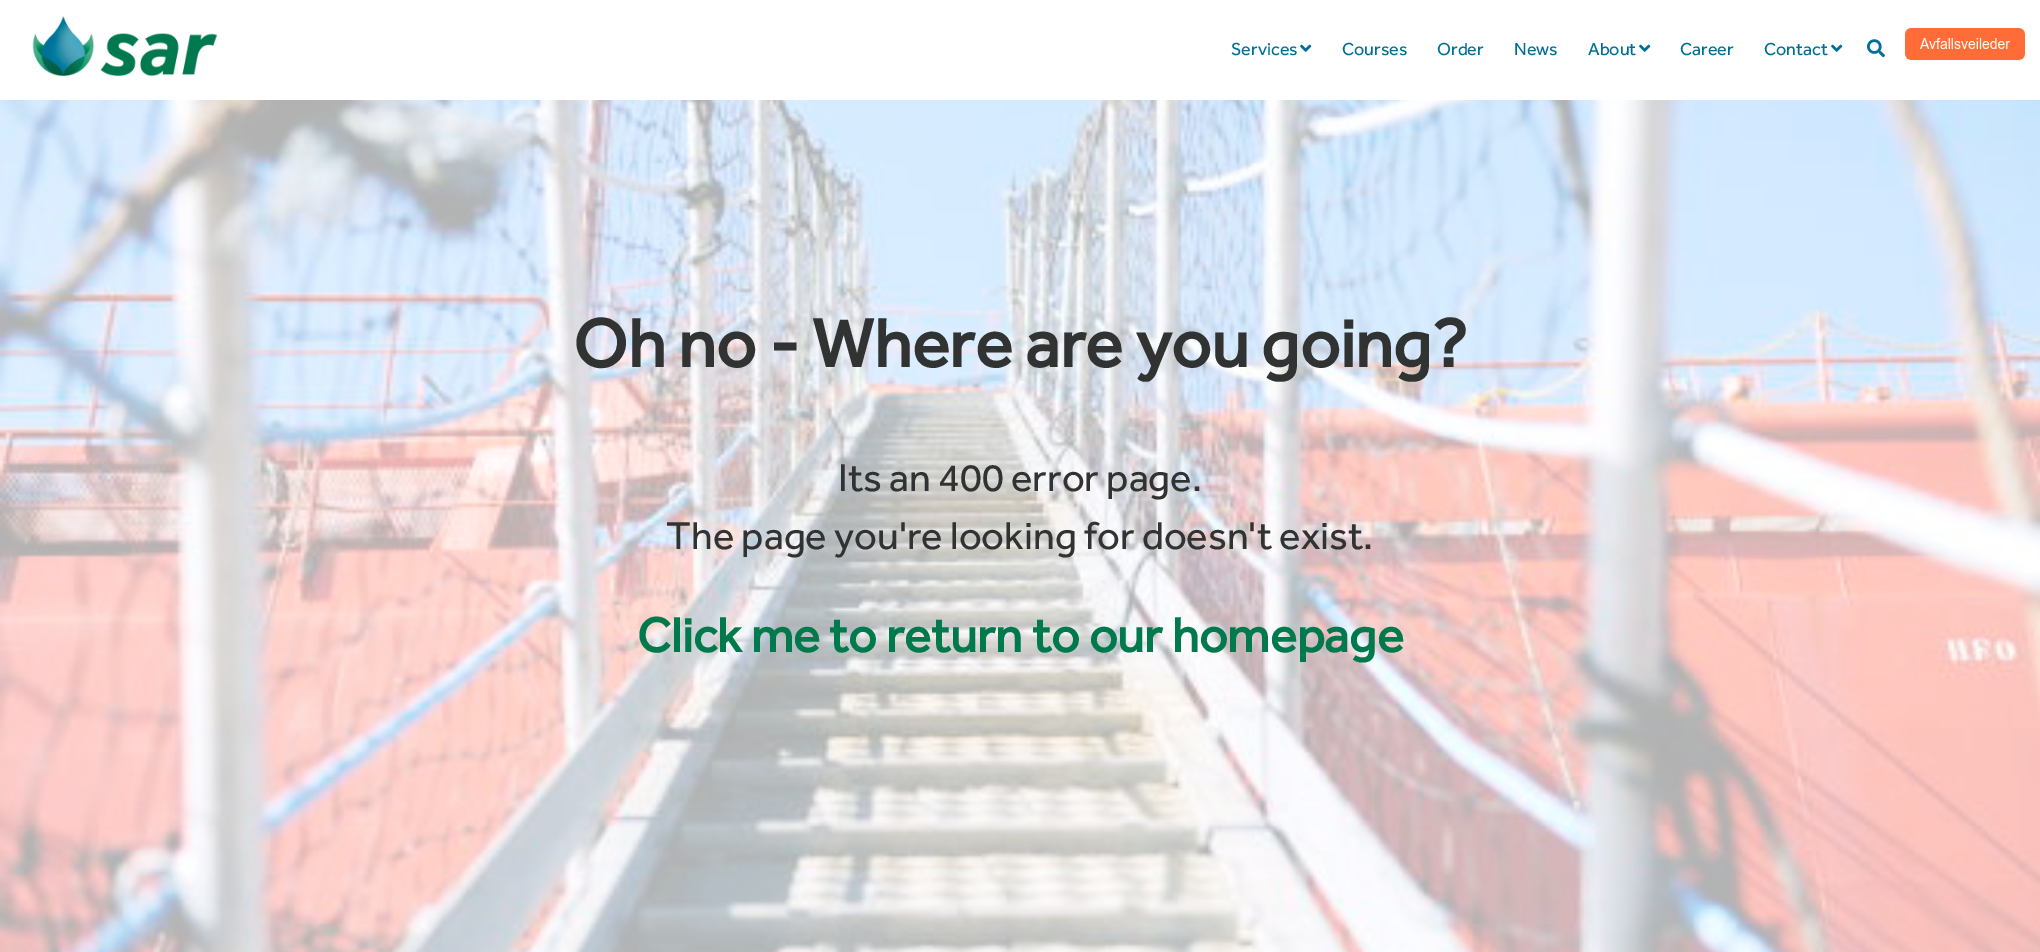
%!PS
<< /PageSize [2040 952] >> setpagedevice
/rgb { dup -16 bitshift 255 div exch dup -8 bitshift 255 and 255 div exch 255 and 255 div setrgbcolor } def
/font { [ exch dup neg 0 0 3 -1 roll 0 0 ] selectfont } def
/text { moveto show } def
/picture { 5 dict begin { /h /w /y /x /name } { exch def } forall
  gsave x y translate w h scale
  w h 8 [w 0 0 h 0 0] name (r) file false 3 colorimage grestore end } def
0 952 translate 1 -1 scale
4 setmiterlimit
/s1 { /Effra-Regular 18 font 16#006E96 rgb } def
/s2 { /Effra-Bold 70 font 16#303331 rgb } def
/s3 { /Effra-Regular 40 font 16#303331 rgb } def
/s4 { /Effra-Bold 50 font 16#007A4C rgb } def
16#FFFFFF rgb
0 0 2040 952 rectfill
(pic1.raw) 32 16 186 61 picture
s1
(Services) 1231 55 text
(pic2.raw) 1300 44 12 8 picture
(Courses) 1342 55 text
(Order) 1437 55 text
(News) 1514 55 text
(About) 1588 55 text
(pic2.raw) 1639 44 12 8 picture
(Career) 1680 55 text
(Contact) 1764 55 text
(pic2.raw) 1831 44 12 8 picture
(pic3.raw) 1867 39 18 19 picture
(pic4.raw) 1905 28 120 32 picture
(pic5.raw) 0 100 2040 852 picture
s2
(Oh no - Where are you going?) 573 367 text
s3
(Its an 400 error page.) 838 491 text
(The page you're looking for doesn't exist.) 666 549 text
s4
(Click me to return to our homepage) 637 652 text
showpage
